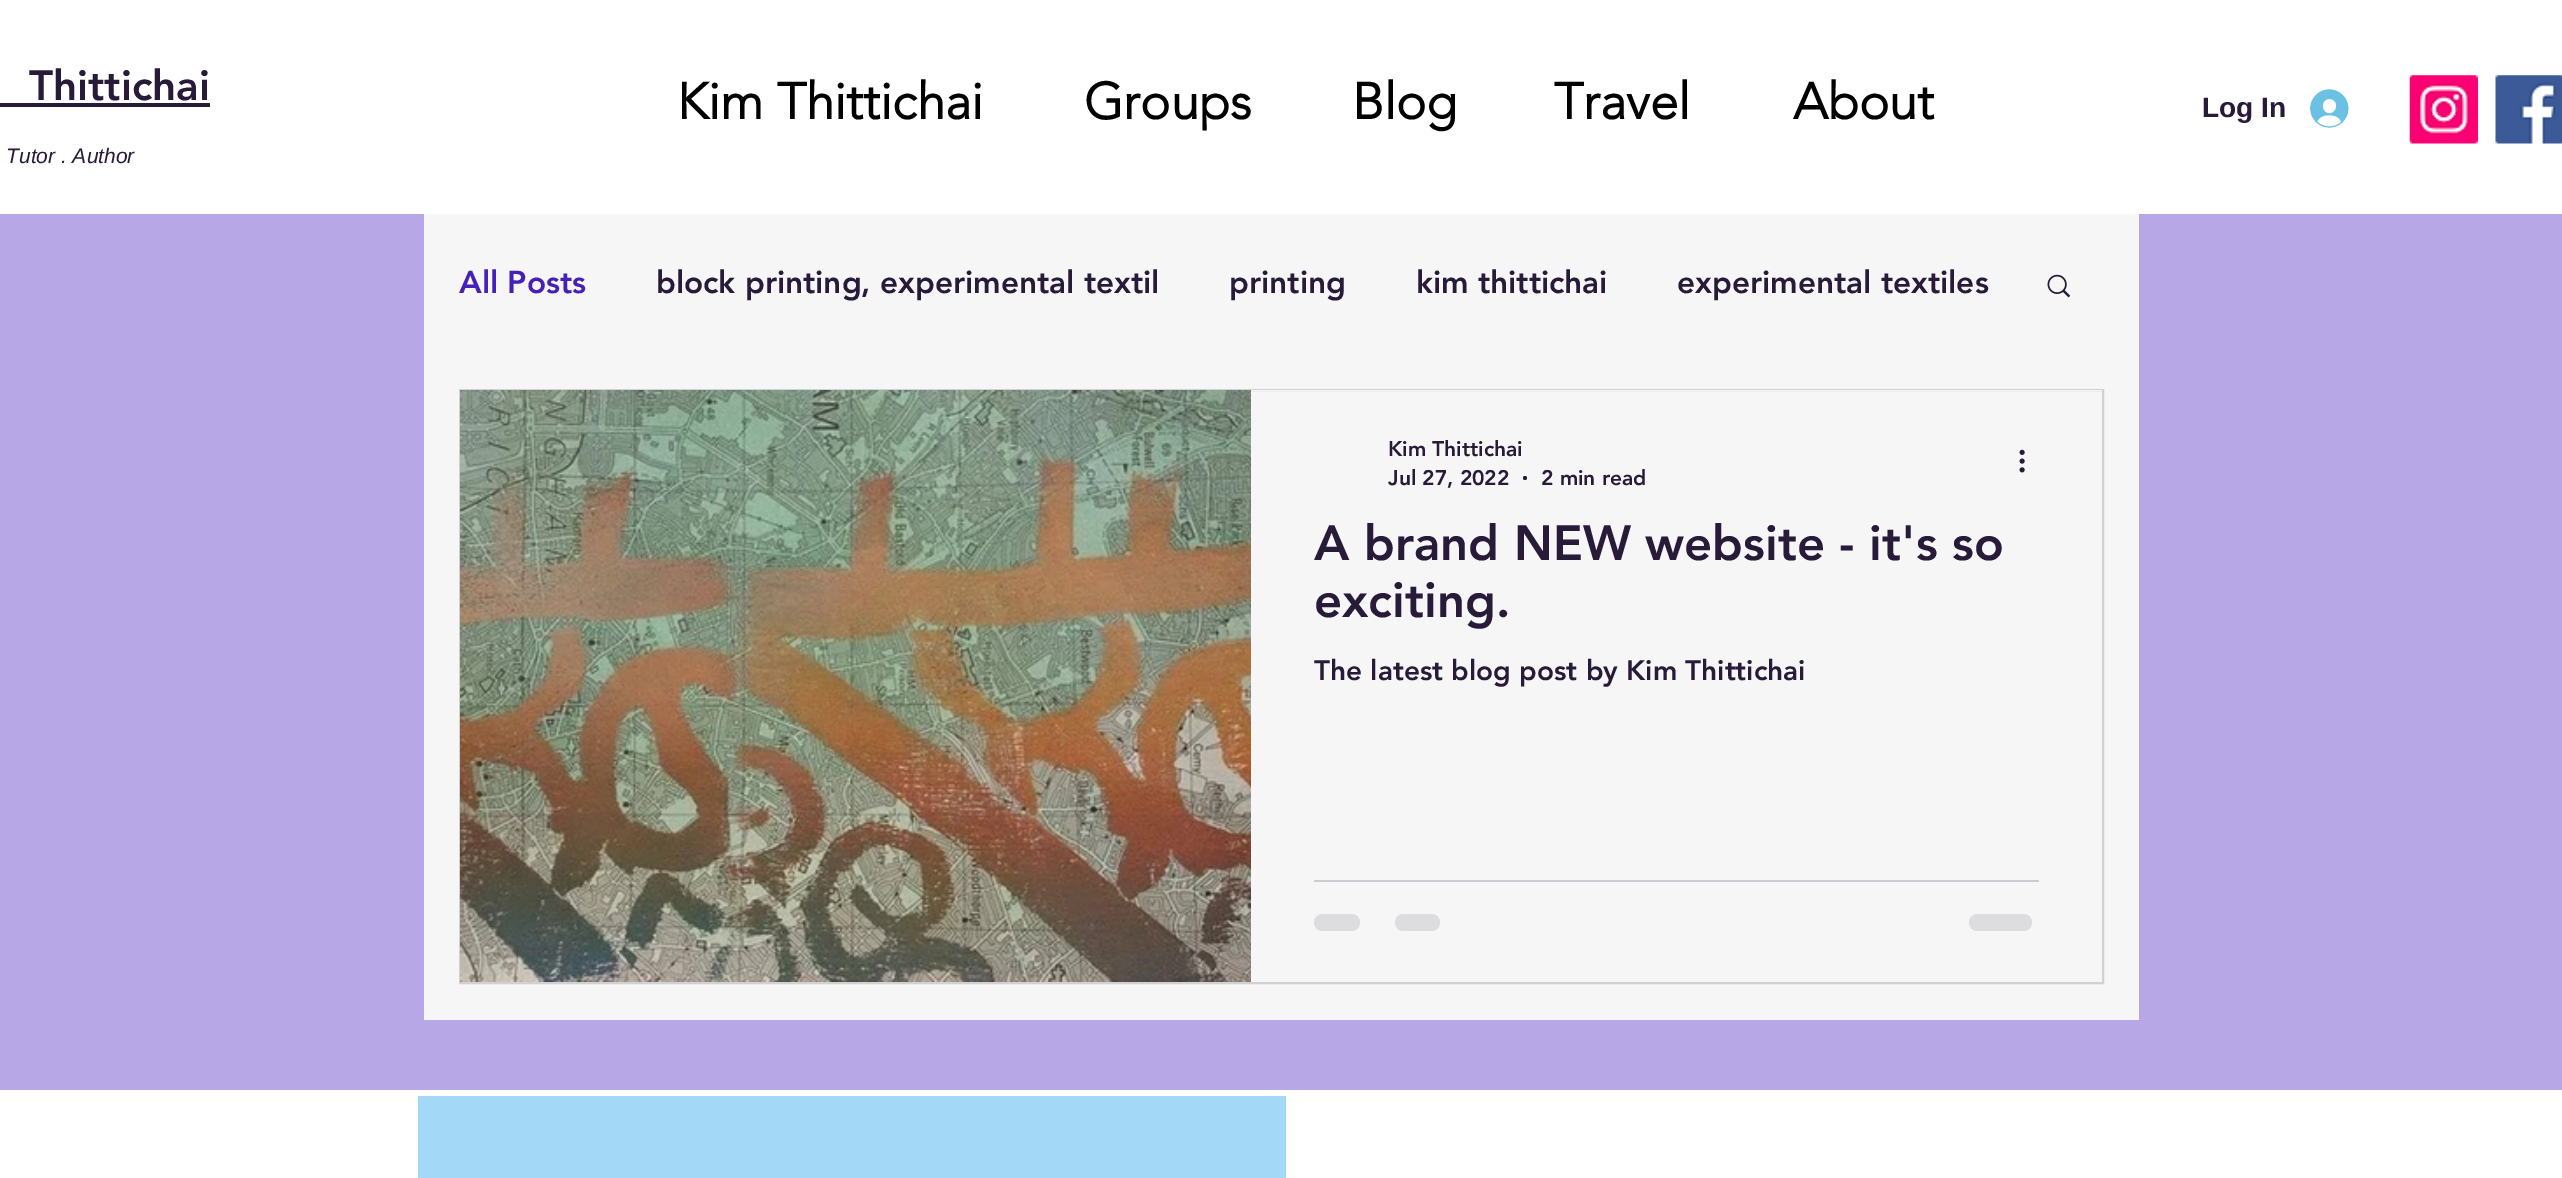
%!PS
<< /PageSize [2562 1178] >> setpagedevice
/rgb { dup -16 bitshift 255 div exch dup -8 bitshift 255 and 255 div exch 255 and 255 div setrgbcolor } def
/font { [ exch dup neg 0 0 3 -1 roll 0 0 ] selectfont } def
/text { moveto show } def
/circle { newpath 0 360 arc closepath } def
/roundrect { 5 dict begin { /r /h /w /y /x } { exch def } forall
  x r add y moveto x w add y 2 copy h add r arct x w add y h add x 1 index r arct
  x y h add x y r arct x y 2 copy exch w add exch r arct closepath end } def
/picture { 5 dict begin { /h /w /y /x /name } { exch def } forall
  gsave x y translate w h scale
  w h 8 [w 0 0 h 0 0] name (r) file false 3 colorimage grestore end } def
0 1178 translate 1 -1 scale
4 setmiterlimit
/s1 { /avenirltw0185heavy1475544-Black 42 font 16#281A39 rgb } def
/s2 { /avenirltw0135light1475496-Bold 50.75 font 16#000000 rgb } def
/s3 { /LiberationSans-Bold 28 font 16#281A39 rgb } def
/s4 { /LiberationSans-Italic 21 font 16#281A39 rgb } def
/s5 { /avenirltw0185heavy1475544-Black 31.5 font 16#4720B7 rgb } def
/s6 { /avenirltw0185heavy1475544-Black 31.5 font 16#281A39 rgb } def
/s7 { /avenirltw0185heavy1475544-Black 21 font 16#281A39 rgb } def
/s8 { /avenirltw0185heavy1475544-Black 49 font 16#281A39 rgb } def
/s9 { /avenirltw0185heavy1475544-Black 28 font 16#281A39 rgb } def
16#B8A7E7 rgb
0 0 2562 1178 rectfill
16#FFFFFF rgb
0 0 2562 214 rectfill
s1
(Thittichai) 29 100 text
0 103 210 4 rectfill
s2
(Kim Thittichai) 677 119 text
(Groups) 1084 119 text
(Blog) 1352 119 text
(Travel) 1554 119 text
(About) 1793 119 text
s3
(Log In) 2202 117 text
(pic1.raw) 2310 89 39 39 picture
(pic2.raw) 2409 75 69 69 picture
(pic3.raw) 2495 75 67 69 picture
s4
(Tutor . Author) 6 163 text
16#F6F6F6 rgb
424 214 1715 806 rectfill
s5
(All Posts) 459 293 text
s6
(block printing, experimental textil) 656 293 text
(printing) 1229 293 text
(kim thittichai) 1416 293 text
(experimental textiles) 1677 293 text
(pic4.raw) 2047 274 24 24 picture
16#D1D1D1 rgb
2 setlinewidth
460 390 1643 593 rectstroke
(pic5.raw) 460 390 791 592 picture
16#F6F6F6 rgb
1251 390 851 1 rectfill
s7
(Kim Thittichai) 1388 456 text
(Jul 27, 2022) 1388 485 text
1525 478 2 circle fill
(2 min read) 1541 485 text
(pic6.raw) 2019 449 6 24 picture
s8
(A brand NEW website - it's so) 1314 560 text
(exciting.) 1314 617 text
s9
(The latest blog post by Kim Thittichai) 1314 680 text
16#CDCAD0 rgb
1314 880 725 2 rectfill
16#DDDCDF rgb
1314 914 46 17 8.5 roundrect fill
1395 914 45 17 8.5 roundrect fill
1969 914 63 17 8.5 roundrect fill
16#FFFFFF rgb
0 1090 2562 88 rectfill
16#A3D9F6 rgb
418 1096 868 82 rectfill
showpage
